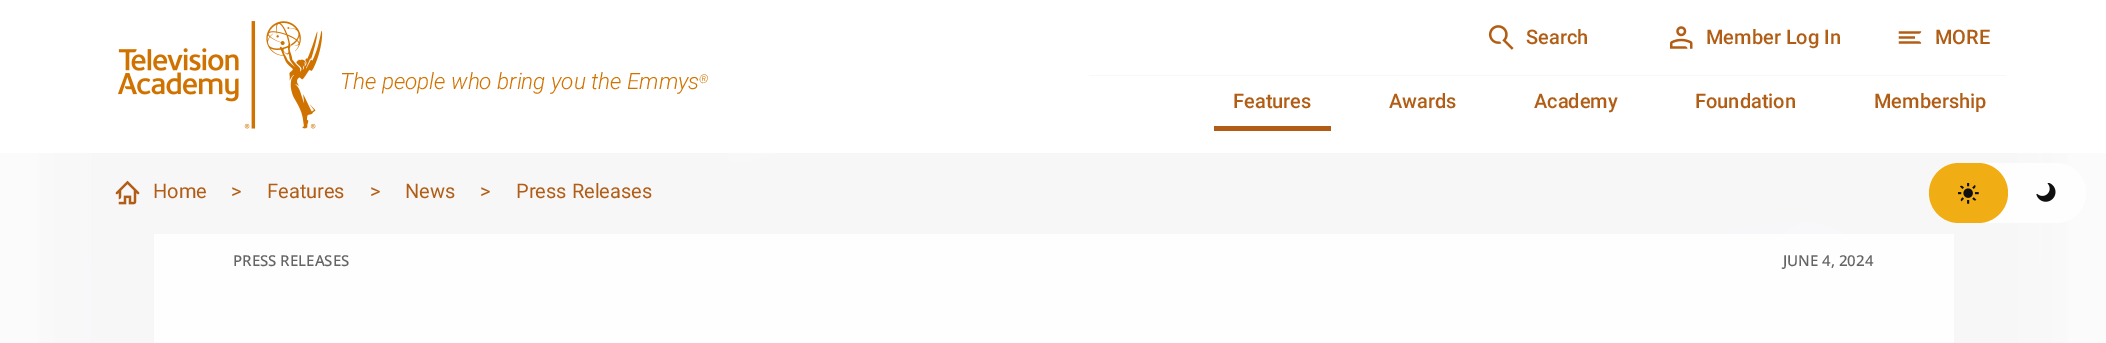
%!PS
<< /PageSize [2106 343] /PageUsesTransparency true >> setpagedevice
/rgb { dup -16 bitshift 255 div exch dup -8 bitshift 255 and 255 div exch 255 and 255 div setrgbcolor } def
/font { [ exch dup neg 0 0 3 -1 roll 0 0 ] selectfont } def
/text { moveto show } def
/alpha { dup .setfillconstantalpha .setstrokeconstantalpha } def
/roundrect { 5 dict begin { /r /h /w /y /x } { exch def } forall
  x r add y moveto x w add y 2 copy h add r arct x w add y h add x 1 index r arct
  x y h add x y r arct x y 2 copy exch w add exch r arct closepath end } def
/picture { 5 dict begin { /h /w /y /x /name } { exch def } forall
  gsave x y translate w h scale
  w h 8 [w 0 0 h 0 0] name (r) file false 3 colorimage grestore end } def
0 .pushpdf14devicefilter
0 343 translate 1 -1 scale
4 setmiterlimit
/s1 { /Roboto-LightItalic 22.5 font 16#D07200 rgb } def
/s2 { /Roboto-LightItalic 12 font 16#D07200 rgb } def
/s3 { /Roboto-Medium 20 font 16#B15D15 rgb } def
/s4 { /Roboto-Regular 20 font 16#B15D15 rgb } def
/s5 { /NotoSans-Medium 15 font 16#646464 rgb } def
16#E1E1E1 rgb
0 0 2106 343 rectfill
16#FFFFFF rgb
0 0 2106 153 rectfill
(pic1.raw) 118 21 205 108 picture
s1
(The people who bring you the Emmys) 340 89 text
s2
(®) 699 83 text
(pic2.raw) 1488 25 26 25 picture
s3
(Search) 1526 44 text
(pic3.raw) 1670 26 23 23 picture
(Member Log In) 1706 44 text
(pic4.raw) 1898 31 24 13 picture
(MORE) 1935 44 text
16#F8F8F8 rgb
1089 75 917 1 rectfill
16#B15D15 rgb
1214 126 117 5 rectfill
(Features) 1233 108 text
(Awards) 1389 108 text
(Academy) 1534 108 text
(Foundation) 1695 108 text
(Membership) 1874 108 text
(pic5.raw) 37 153 2032 190 picture
0.85 alpha
16#FFFFFF rgb
0 153 2106 81 rectfill
1 alpha
(pic6.raw) 115 180 25 25 picture
s4
(Home) 153 198 text
(>) 231 198 text
(Features) 267 198 text
(>) 370 198 text
(News) 405 198 text
(>) 480 198 text
(Press Releases) 516 198 text
0.85 alpha
16#FFFFFF rgb
0 234 2106 109 rectfill
1 alpha
16#FEFEFE rgb
154 234 1800 109 rectfill
s5
(PRESS RELEASES) 233 266 text
(JUNE 4, 2024) 1783 266 text
0.85 alpha
16#FFFFFF rgb
1929 163 157 60 30 roundrect fill
1 alpha
16#F1AD14 rgb
1929 163 79 60 30 roundrect fill
(pic7.raw) 1958 183 21 21 picture
(pic8.raw) 2036 183 20 19 picture
.poppdf14devicefilter showpage
